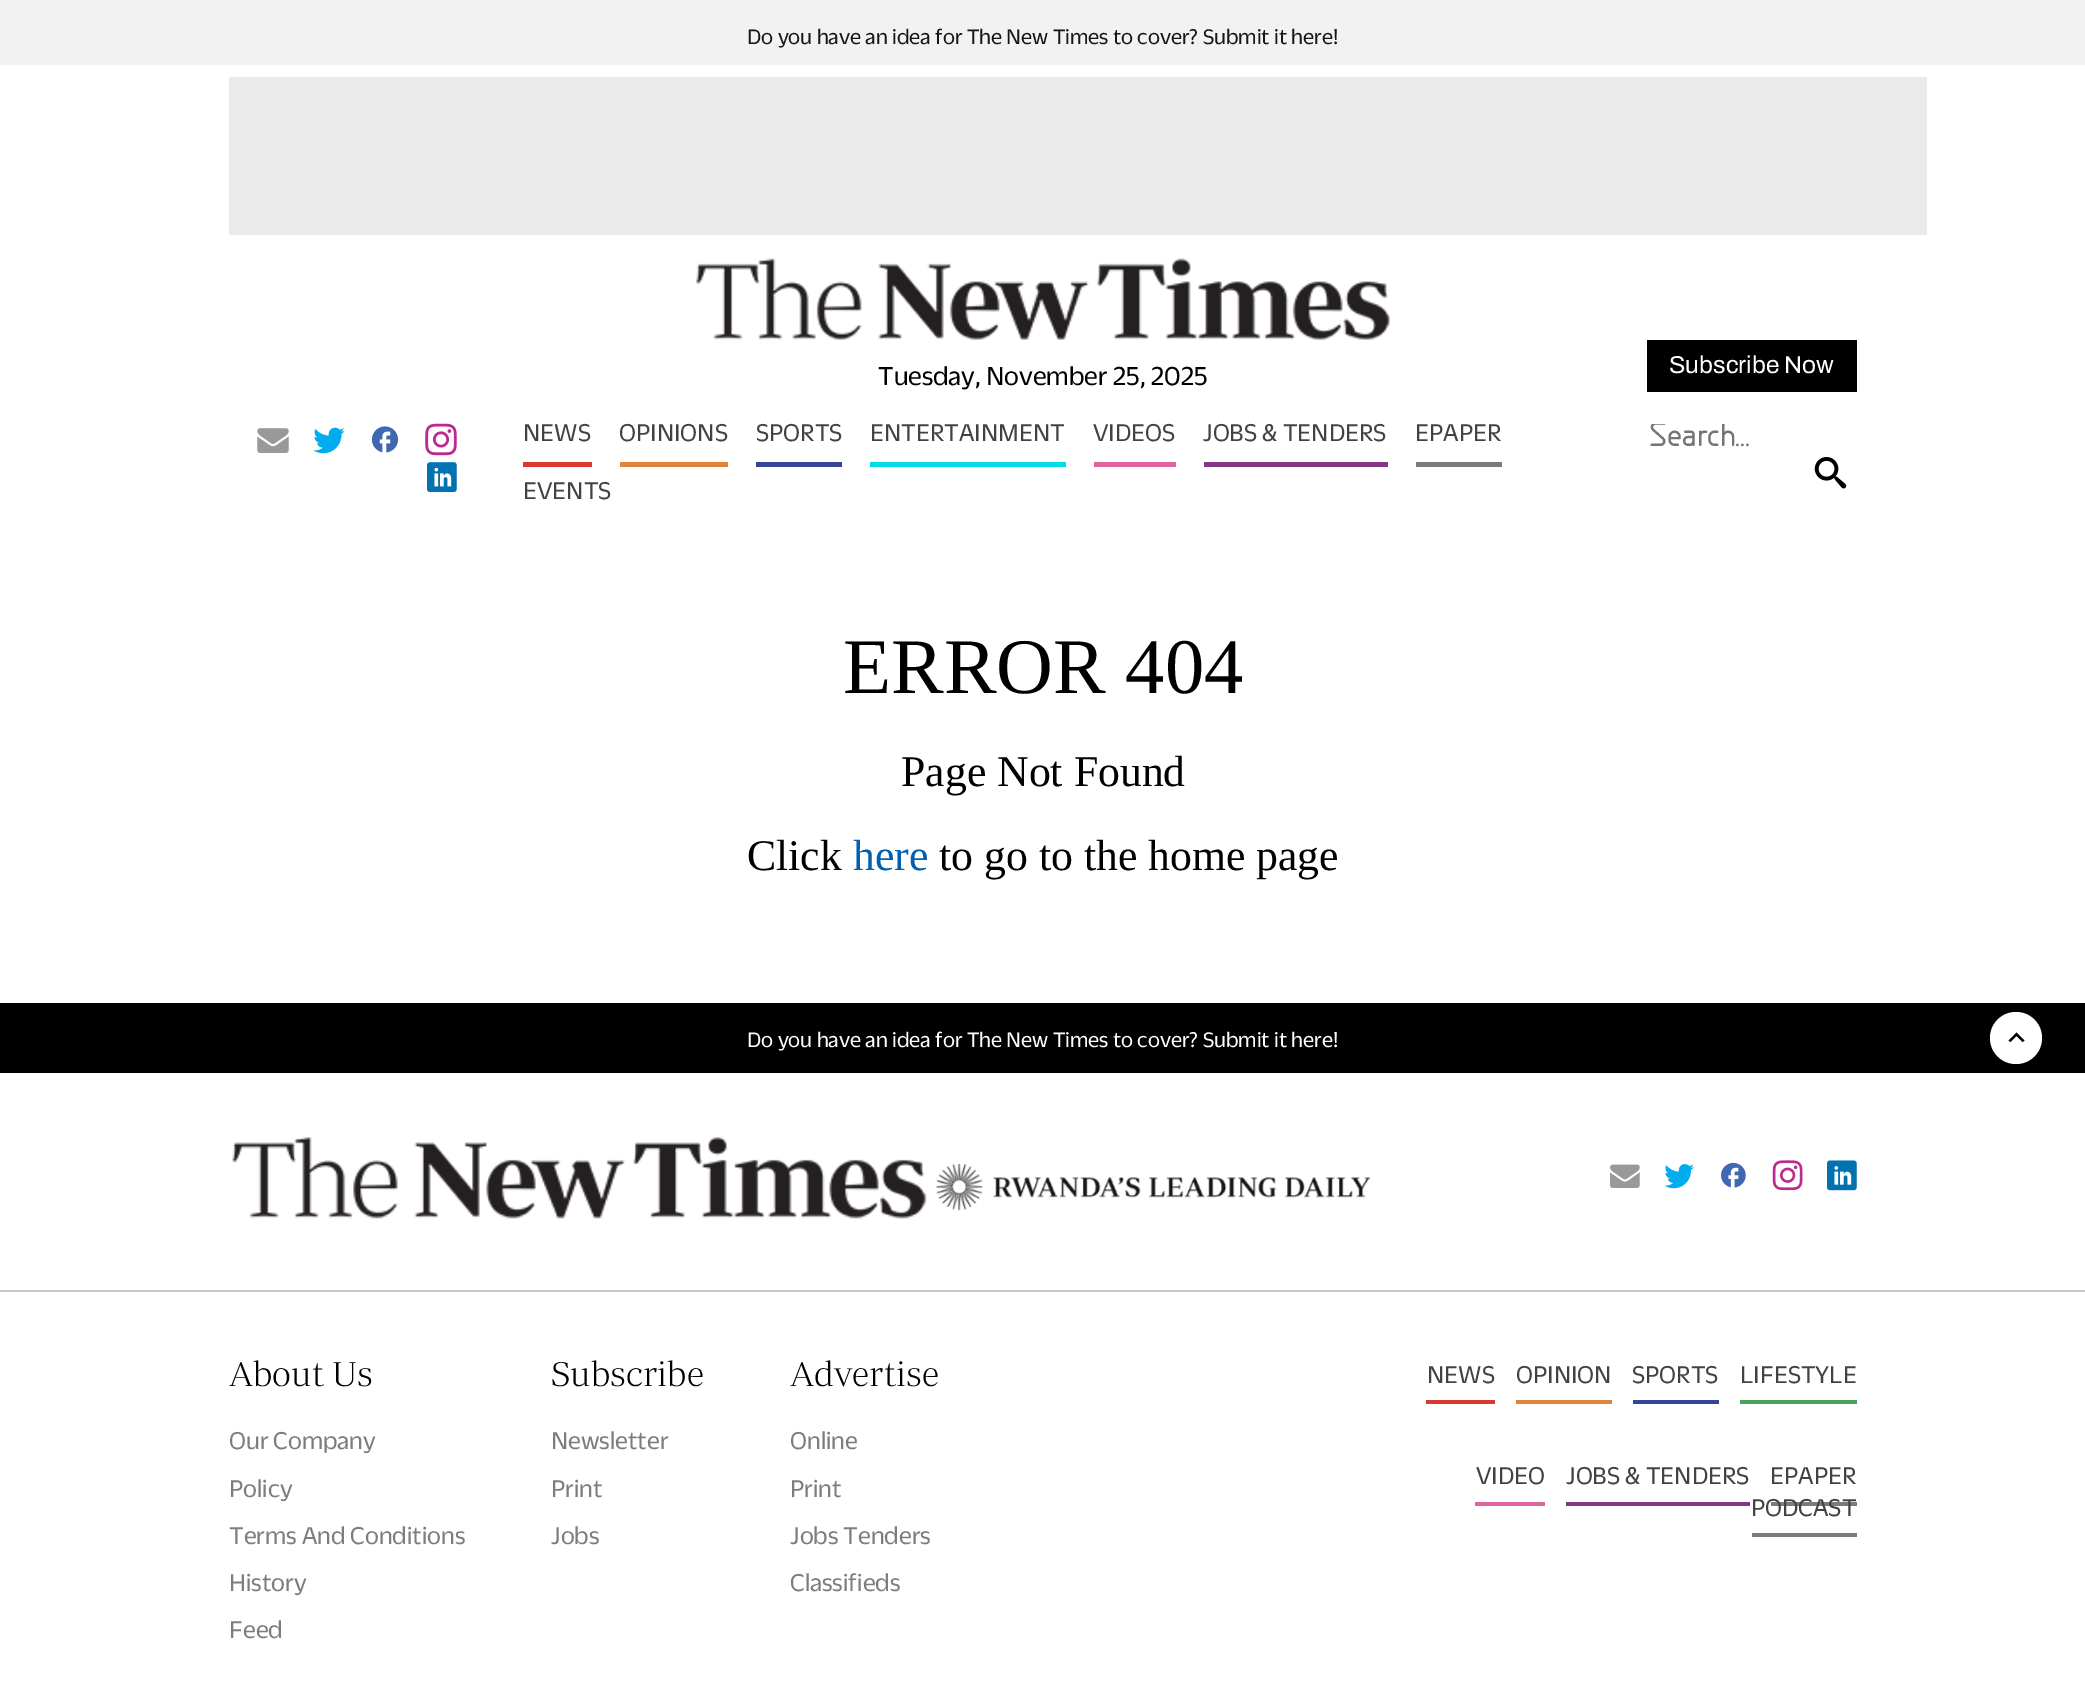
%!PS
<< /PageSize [2085 1705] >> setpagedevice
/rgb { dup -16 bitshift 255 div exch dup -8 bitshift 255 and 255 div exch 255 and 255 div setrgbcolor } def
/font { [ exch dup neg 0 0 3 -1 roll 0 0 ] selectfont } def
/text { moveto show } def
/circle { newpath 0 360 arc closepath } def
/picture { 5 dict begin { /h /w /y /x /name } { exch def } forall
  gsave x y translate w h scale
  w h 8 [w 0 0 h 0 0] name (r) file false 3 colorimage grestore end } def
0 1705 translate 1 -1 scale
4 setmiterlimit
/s1 { /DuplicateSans-Regular 22.75 font 16#151616 rgb } def
/s2 { /DuplicateSans-Regular 28 font 16#000000 rgb } def
/s3 { /Archivo-Regular 24.5 font 16#FFFFFF rgb } def
/s4 { /DuplicateSans-Regular 26.25 font 16#404343 rgb } def
/s5 { /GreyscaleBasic-Bold 31.5 font 16#757575 rgb } def
/s6 { /LiberationSerif-Regular 78.75 font 16#000000 rgb } def
/s7 { /LiberationSerif-Regular 43.75 font 16#000000 rgb } def
/s8 { /LiberationSerif-Regular 43.75 font 16#0060AF rgb } def
/s9 { /DuplicateSans-Regular 22.75 font 16#FFFFFF rgb } def
/s10 { /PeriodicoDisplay-Regular 35 font 16#000000 rgb } def
/s11 { /DuplicateSans-Regular 26.25 font 16#7D7D7D rgb } def
16#FFFFFF rgb
0 0 2085 1705 rectfill
16#F2F2F2 rgb
0 0 2085 65 rectfill
s1
(Do you have an idea for The New Times to cover? Submit it here!) 747 44 text
16#EAEAEA rgb
229 77 1698 158 rectfill
(pic1.raw) 696 258 694 82 picture
s2
(Tuesday, November 25, 2025) 878 385 text
1647 340 210 52 rectfill
s3
(Subscribe Now) 1669 373 text
(pic2.raw) 257 428 32 25 picture
(pic3.raw) 313 427 32 27 picture
(pic4.raw) 371 426 28 27 picture
(pic5.raw) 425 423 32 33 picture
(pic6.raw) 427 462 30 30 picture
16#DA3832 rgb
523 462 69 5 rectfill
s4
(NEWS) 523 441 text
16#E2833A rgb
620 462 108 5 rectfill
s4
(OPINIONS) 619 441 text
16#364397 rgb
756 462 86 5 rectfill
s4
(SPORTS) 756 441 text
16#03DBE6 rgb
870 462 196 5 rectfill
s4
(ENTERTAINMENT) 870 441 text
16#DE639F rgb
1094 462 82 5 rectfill
s4
(VIDEOS) 1093 441 text
16#863582 rgb
1204 462 184 5 rectfill
s4
(JOBS & TENDERS) 1203 441 text
16#7B7B7B rgb
1416 462 86 5 rectfill
s4
(EPAPER) 1415 441 text
(EVENTS) 523 499 text
gsave
1650 424 203 31 rectclip
s5
(Search...) 1650 446 text
grestore
(pic7.raw) 1814 457 33 32 picture
s6
(ERROR 404) 843 693 text
s7
(Page Not Found) 901 786 text
(Click) 747 870 text
s8
(here) 853 870 text
s7
(to go to the home page) 939 870 text
0 1003 2085 70 rectfill
s9
(Do you have an idea for The New Times to cover? Submit it here!) 747 1047 text
2016 1038 26 circle fill
16#000000 rgb
2022.5 1042 moveto 2016.5 1036 lineto 2010.5 1042 lineto 2008.5 1040.5 lineto 2016.5 1032.5 lineto 2024.5 1040.5 lineto closepath fill
16#CACACA rgb
0 1290 2085 2 rectfill
(pic8.raw) 232 1137 695 82 picture
(pic9.raw) 936 1164 434 47 picture
(pic10.raw) 1610 1164 30 24 picture
(pic11.raw) 1664 1164 30 25 picture
(pic12.raw) 1721 1162 25 26 picture
(pic13.raw) 1772 1160 31 31 picture
(pic14.raw) 1827 1160 30 31 picture
s10
(About Us) 229 1386 text
s11
(Our Company) 229 1449 text
(Policy) 229 1497 text
(Terms And Conditions) 229 1544 text
(History) 229 1591 text
(Feed) 229 1638 text
s10
(Subscribe) 551 1386 text
s11
(Newsletter) 551 1449 text
(Print) 551 1497 text
(Jobs) 551 1544 text
s10
(Advertise) 790 1386 text
s11
(Online) 790 1449 text
(Print) 790 1497 text
(Jobs Tenders) 790 1544 text
(Classifieds) 790 1591 text
s4
(NEWS) 1427 1383 text
16#DA3832 rgb
1426 1400 69 4 rectfill
s4
(OPINION) 1516 1383 text
16#E2833A rgb
1516 1400 96 4 rectfill
s4
(SPORTS) 1632 1383 text
16#364397 rgb
1633 1400 86 4 rectfill
s4
(LIFESTYLE) 1740 1383 text
16#4AA35A rgb
1740 1400 117 4 rectfill
s4
(VIDEO) 1476 1484 text
16#DE639F rgb
1475 1502 70 4 rectfill
s4
(JOBS & TENDERS) 1566 1484 text
16#863582 rgb
1566 1502 184 4 rectfill
s4
(EPAPER) 1770 1484 text
16#7B7B7B rgb
1771 1502 86 4 rectfill
s4
(PODCAST) 1751 1516 text
16#7B7B7B rgb
1752 1533 105 4 rectfill
showpage
